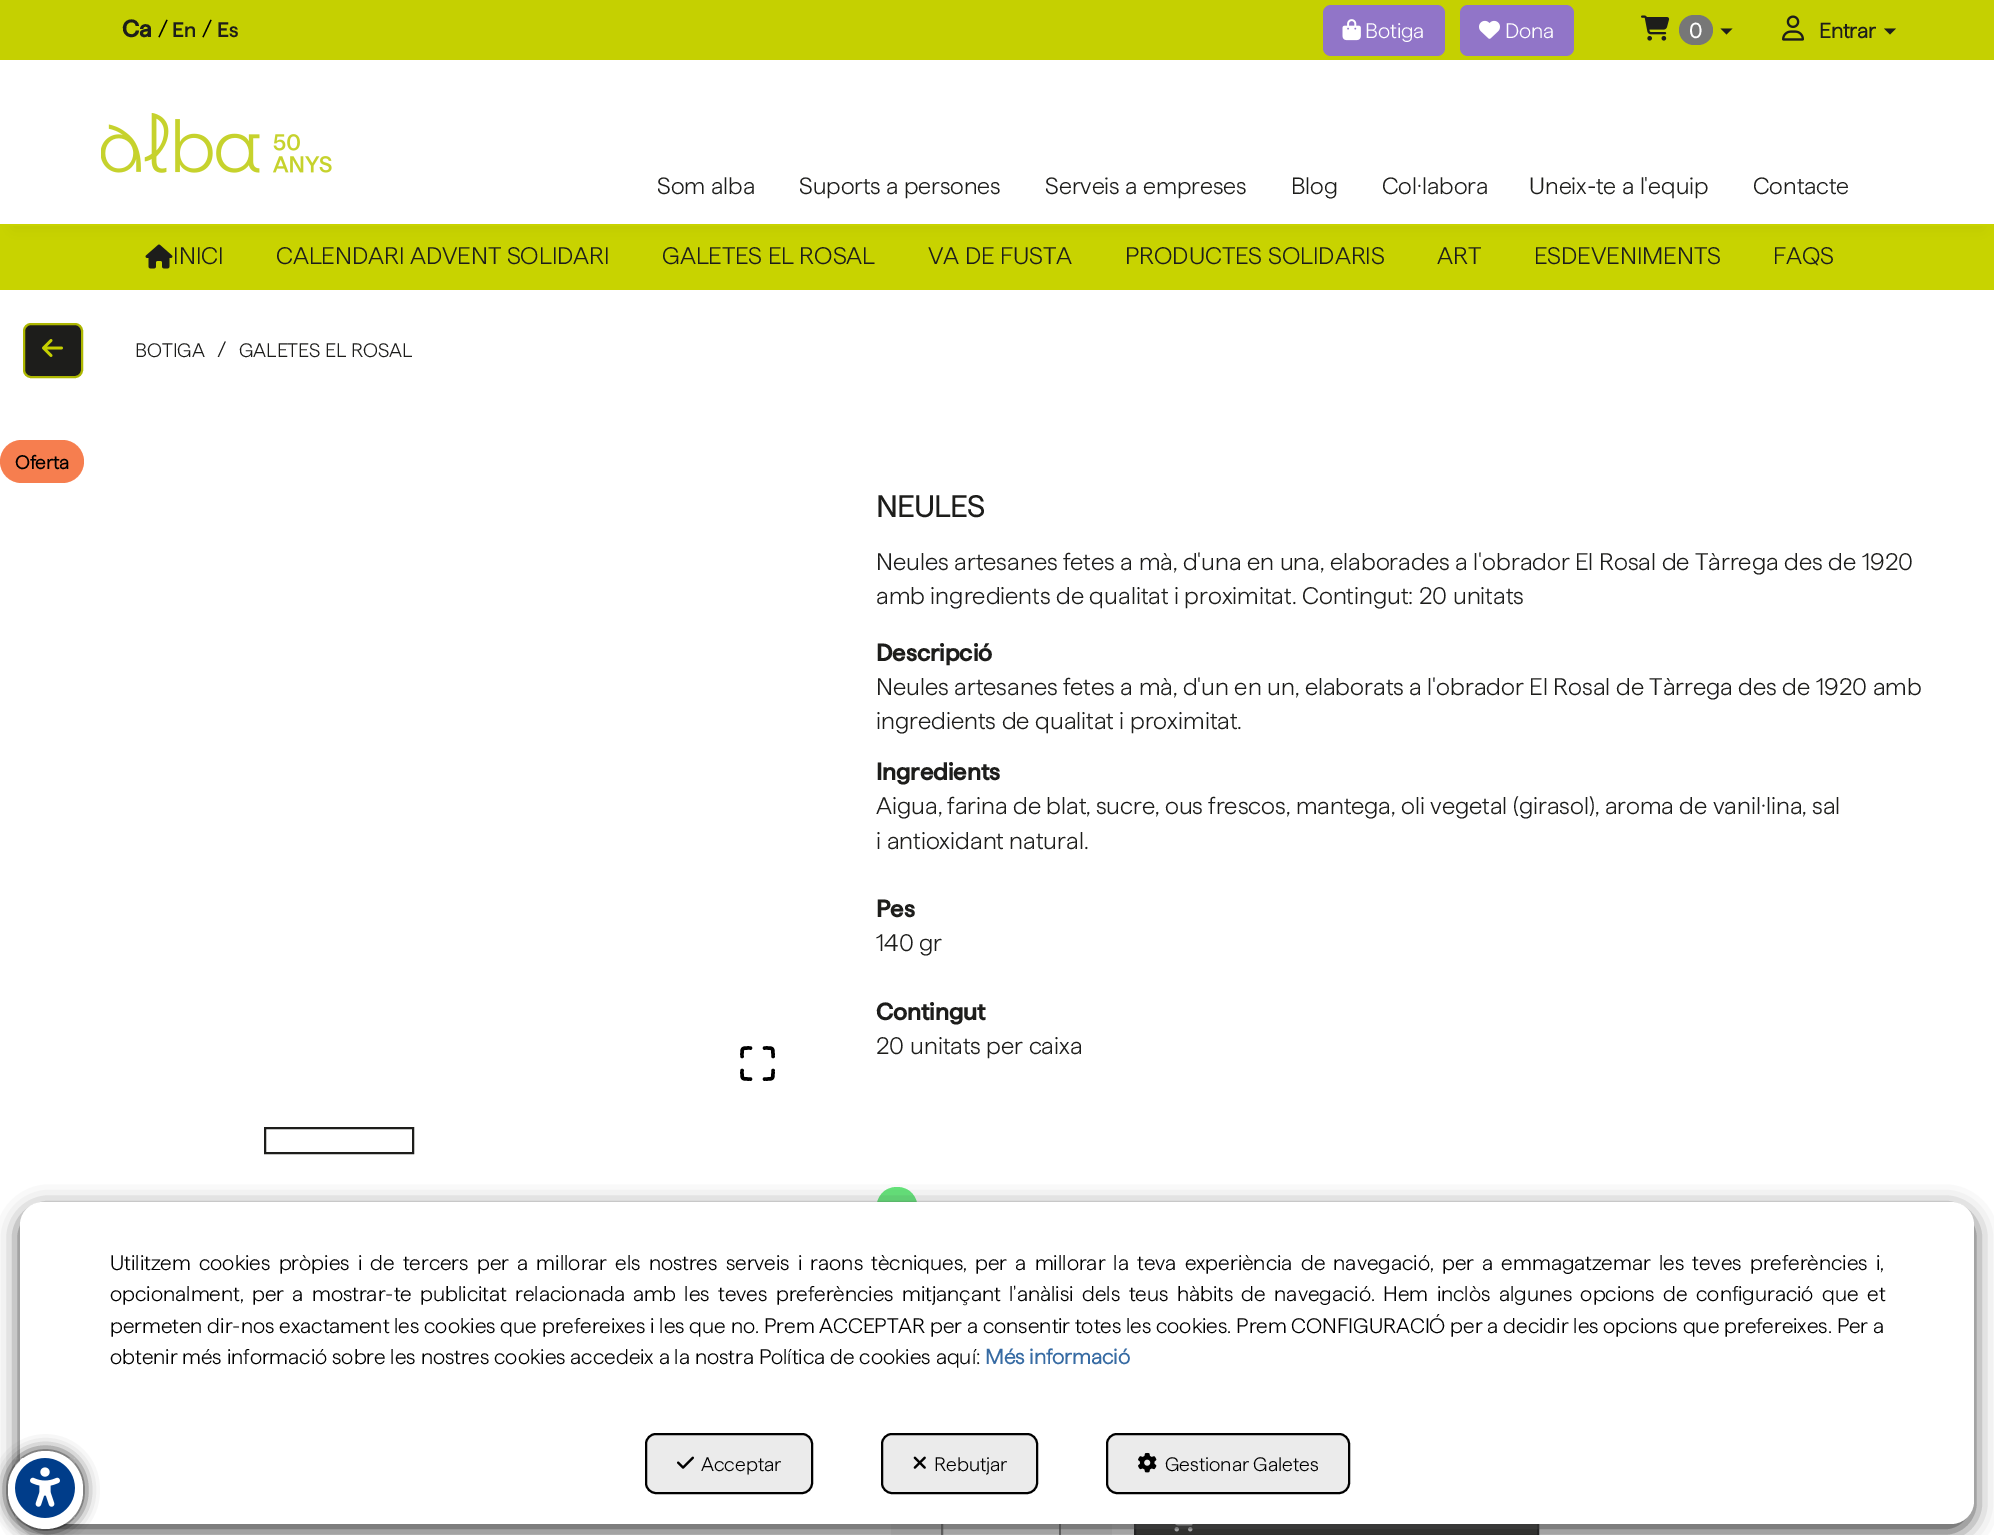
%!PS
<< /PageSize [1994 1535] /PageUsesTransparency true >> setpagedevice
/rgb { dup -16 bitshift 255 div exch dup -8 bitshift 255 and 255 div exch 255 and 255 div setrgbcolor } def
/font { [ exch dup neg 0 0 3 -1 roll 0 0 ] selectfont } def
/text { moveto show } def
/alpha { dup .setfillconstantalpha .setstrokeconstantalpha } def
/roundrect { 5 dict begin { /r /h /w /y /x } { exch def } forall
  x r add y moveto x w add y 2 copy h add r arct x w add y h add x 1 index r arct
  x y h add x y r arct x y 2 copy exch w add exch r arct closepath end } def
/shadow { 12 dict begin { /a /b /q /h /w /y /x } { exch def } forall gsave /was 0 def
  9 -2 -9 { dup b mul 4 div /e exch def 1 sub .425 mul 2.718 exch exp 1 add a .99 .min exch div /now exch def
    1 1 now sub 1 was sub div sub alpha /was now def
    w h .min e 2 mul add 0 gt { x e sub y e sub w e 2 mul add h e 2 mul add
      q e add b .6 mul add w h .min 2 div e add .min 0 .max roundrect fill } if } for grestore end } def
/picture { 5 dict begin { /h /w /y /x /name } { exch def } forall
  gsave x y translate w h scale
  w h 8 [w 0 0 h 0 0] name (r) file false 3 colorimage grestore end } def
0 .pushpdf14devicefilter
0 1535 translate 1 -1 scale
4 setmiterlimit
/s1 { /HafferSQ-Bold 24 font 16#1D1D1B rgb } def
/s2 { /HafferSQ-Medium 21 font 16#1D1D1B rgb } def
/s3 { /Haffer-Light 21 font 16#FFFFFF rgb } def
/s4 { /Haffer-Bold 21 font 16#FFFFFF rgb } def
/s5 { /Haffer-Bold 21 font 16#1D1D1B rgb } def
/s6 { /Haffer-Light 23.5 font 16#1D1D1B rgb } def
/s7 { /Haffer-Light 24 font 16#1D1D1B rgb } def
/s8 { /Haffer-Light 19.5 font 16#1D1D1B rgb } def
/s9 { /Haffer-Light 22 font 16#1D1D1B rgb } def
/s10 { /Haffer-Bold 19 font 16#000000 rgb } def
/s11 { /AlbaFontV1-Bold 30 font 16#1D1D1B rgb } def
/s12 { /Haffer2-Bold 24 font 16#1D1D1B rgb } def
/s13 { /Haffer-Light 21 font 16#000000 rgb } def
/s14 { /Haffer-Bold 21 font 16#376BA3 rgb } def
/s15 { /Haffer-Light 19.5 font 16#000000 rgb } def
16#C5D001 rgb
0 0 1994 1535 rectfill
s1
(Ca) 122 37 text
/Haffer-Light 24 font
16#000000 rgb
gsave 157 35 translate 25 rotate 0 0 moveto (|) show grestore
s2
(En) 172 37 text
/Haffer-Light 24 font
16#000000 rgb
gsave 201 35 translate 25 rotate 0 0 moveto (|) show grestore
s2
(Es) 217 37 text
16#9175C8 rgb
1323 5 122 51 8 roundrect fill
(pic1.raw) 1342 19 19 22 picture
s3
(Botiga) 1365 38 text
16#9175C8 rgb
1460 5 114 51 8 roundrect fill
(pic2.raw) 1479 20 21 19 picture
s3
(Dona) 1505 38 text
(pic3.raw) 1641 15 29 26 picture
16#777777 rgb
1679 15 34 30 15 roundrect fill
s4
(0) 1689 38 text
16#1D1D1B rgb
1720.5 28.5 moveto 1732.5 28.5 lineto 1726.5 34.5 lineto closepath fill
(pic4.raw) 1782 15 22 26 picture
(Entrar) 1819 38 text
1884 28.5 moveto 1896 28.5 lineto 1890 34.5 lineto closepath fill
16#C8D300 rgb
0 226 1994 64 rectfill
(pic6.raw) 145 244 28 25 picture
16#000000 rgb
14 89 1968 138 0 7.5 0.05 shadow
16#FFFFFF rgb
0 60 1994 164 rectfill
16#C8D300 rgb
0 224 1994 2 rectfill
(pic5.raw) 101 113 231 60 picture
s6
(Som alba) 657 194 text
(Suports a persones) 799 194 text
(Serveis a empreses) 1045 194 text
(Blog) 1291 194 text
(Col·labora) 1382 194 text
(Uneix-te a l'equip) 1529 194 text
(Contacte) 1753 194 text
16#FFFFFF rgb
0 290 1994 1245 rectfill
s7
(INICI) 173 264 text
(CALENDARI ADVENT SOLIDARI) 276 264 text
(GALETES EL ROSAL) 662 264 text
(VA DE FUSTA) 928 264 text
(PRODUCTES SOLIDARIS) 1125 264 text
(ART) 1437 264 text
(ESDEVENIMENTS) 1534 264 text
(FAQS) 1773 264 text
24 324 58 53 7 roundrect gsave fill grestore
16#ADB701 rgb
2 setlinewidth
stroke
(pic7.raw) 42 339 21 18 picture
s8
(BOTIGA) 135 357 text
s9
(/) 217 357 text
s8
(GALETES EL ROSAL) 239 357 text
16#F67E4F rgb
0 440 84 43 21.5 roundrect fill
s10
(Oferta) 15 469 text
3.5 setlinewidth
1 setlinecap
1 setlinejoin
750.5 1048 moveto 741.5 1048 742 1047.5 742 1056.5 curveto 773 1056.5 moveto 773 1047.5 773.5 1048 764.5 1048 curveto 764.5 1079 moveto 773.5 1079 773 1079.5 773 1070.5 curveto 742 1070.5 moveto 742 1079.5 741.5 1079 750.5 1079 curveto stroke
16#1D1D1B rgb
2 setlinewidth
0 setlinecap
0 setlinejoin
265 1128 148 25 rectstroke
s11
(NEULES) 876 517 text
s7
(Neules artesanes fetes a mà, d'una en una, elaborades a l'obrador El Rosal de Tàrrega des de 1920) 876 570 text
(amb ingredients de qualitat i proximitat. Contingut: 20 unitats) 876 604 text
s12
(Descripció) 876 661 text
s7
(Neules artesanes fetes a mà, d'un en un, elaborats a l'obrador El Rosal de Tàrrega des de 1920 amb) 876 695 text
(ingredients de qualitat i proximitat.) 876 729 text
s12
(Ingredients) 876 780 text
/Haffer-Light 24 font
876 814 moveto -0.25 0 32 (Aigua, farina de blat, sucre, ous frescos, mantega, oli vegetal \(girasol\), aroma de vanil·lina, sal) widthshow
(i antioxidant natural.) 876 849 text
s12
(Pes) 876 917 text
s7
(140 gr) 876 951 text
s12
(Contingut) 876 1020 text
s7
(20 unitats per caixa) 876 1054 text
16#65E67B rgb
897 1229 moveto 925 1229 924 1187 897 1187 curveto 870 1187 869 1229 897 1229 curveto closepath fill
16#EFEFEF rgb
899 1485 moveto 941 1485 lineto 941 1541 lineto 899 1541 lineto 894.5 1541 891 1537.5 891 1533 curveto 891 1493 lineto 891 1488.5 894.5 1485 899 1485 curveto closepath fill
16#767676 rgb
942 1486 118 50 rectstroke
16#EFEFEF rgb
1061 1485 moveto 1104 1485 lineto 1108.5 1485 1112 1488.5 1112 1493 curveto 1112 1533 lineto 1112 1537.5 1108.5 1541 1104 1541 curveto 1061 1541 lineto closepath fill
16#1D1D1B rgb
1136 1524 401 11 rectfill
16#030302 rgb
1135 1494 403 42 rectstroke
(pic8.raw) 1174 1524 19 8 picture
16#454545 rgb
20 1209 1954 323 23 11 1 shadow
16#FFFFFF rgb
20 1202 1954 322 23 roundrect fill
16#000000 rgb
8 1451 75 78 37.5 7.5 1 shadow
16#FFFFFF rgb
8 1451 75 78 37.5 roundrect fill
(pic9.raw) 15 1458 60 60 picture
/Haffer-Light 21 font
16#000000 rgb
110 1270 moveto 3.4 0 32 (Utilitzem cookies pròpies i de tercers per a millorar els nostres serveis i raons tècniques, per a millorar la teva experiència de navegació, per a emmagatzemar les teves preferències i,) widthshow
110 1301 moveto 3.6 0 32 (opcionalment, per a mostrar-te publicitat relacionada amb les teves preferències mitjançant l'anàlisi dels teus hàbits de navegació.) widthshow
1383 1301 moveto 3.6 0 32 (Hem inclòs algunes opcions de configuració que et) widthshow
(permeten dir-nos exactament les cookies que prefereixes i les que no. Prem ACCEPTAR per a consentir totes les cookies. Prem CONFIGURACIÓ per a decidir les opcions que prefereixes. Per a) 110 1333 text
(obtenir més informació sobre les nostres cookies accedeix a la nostra Política de cookies aquí:) 110 1364 text
s14
(Més informació) 985 1364 text
16#EBEBEB rgb
646 1434 166 59 10 roundrect gsave fill grestore
16#000000 rgb
stroke
(pic10.raw) 677 1456 17 13 picture
s15
(Acceptar) 701 1471 text
16#EBEBEB rgb
882 1434 155 59 10 roundrect gsave fill grestore
16#000000 rgb
stroke
(pic11.raw) 913 1456 13 13 picture
(Rebutjar) 934 1471 text
16#EBEBEB rgb
1107 1434 242 59 10 roundrect gsave fill grestore
16#000000 rgb
stroke
(pic12.raw) 1138 1452 19 21 picture
(Gestionar Galetes) 1165 1471 text
.poppdf14devicefilter showpage
